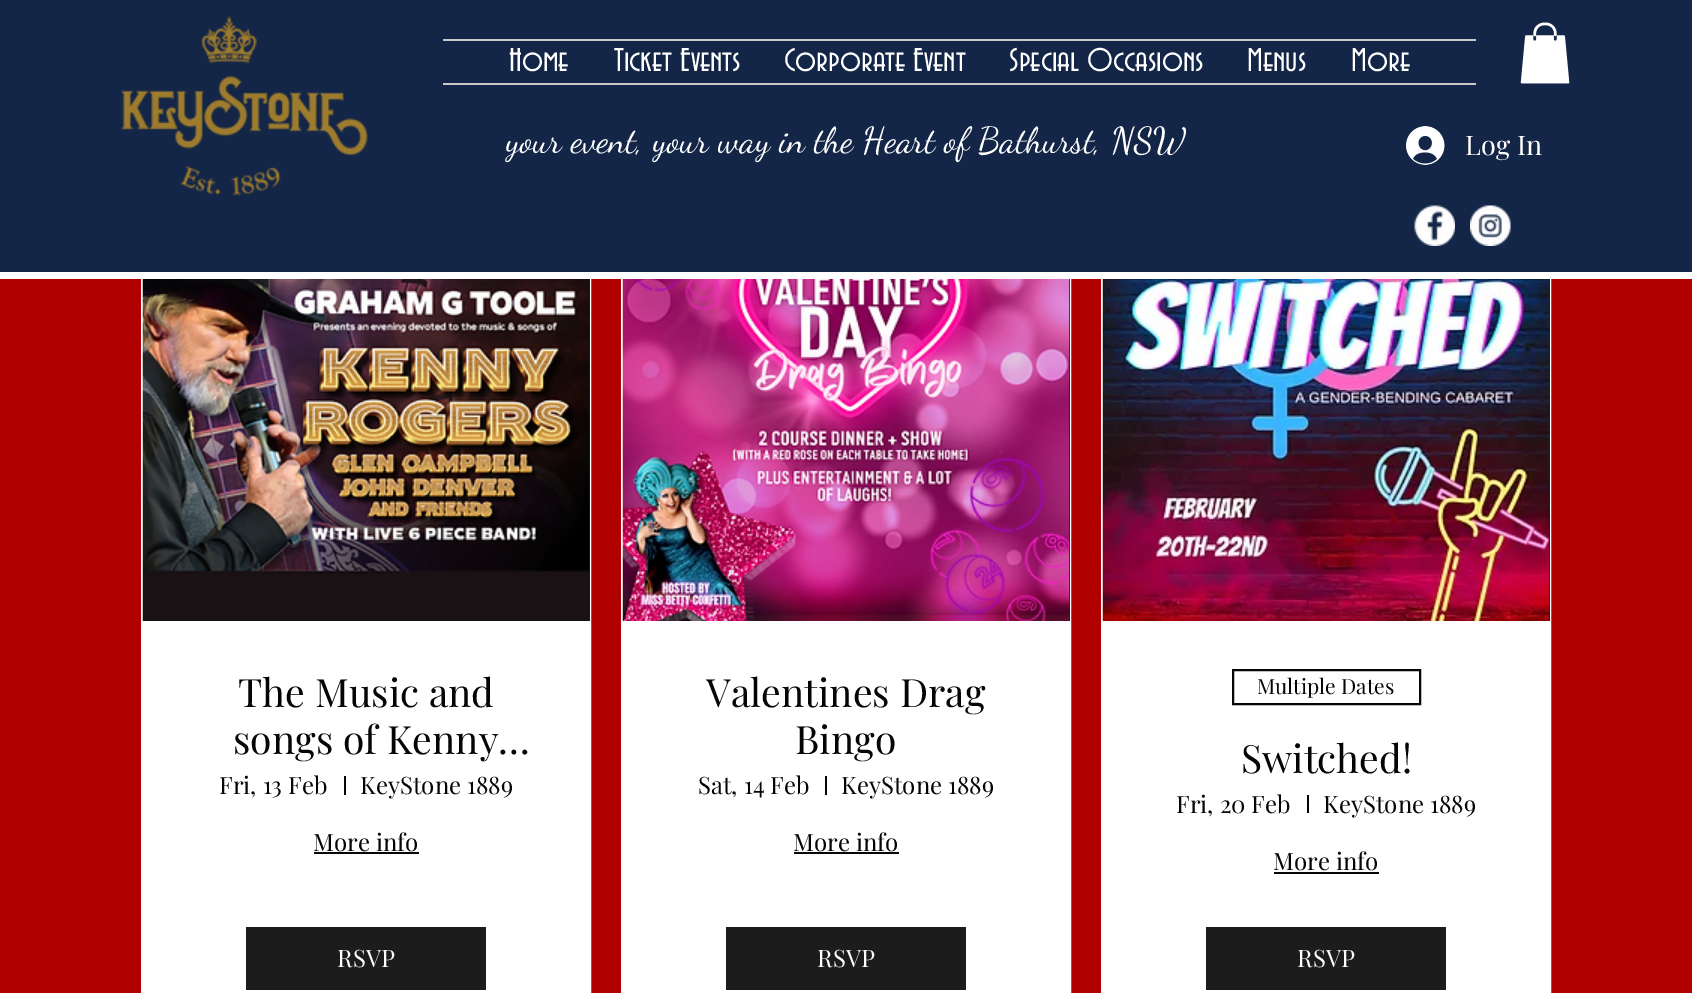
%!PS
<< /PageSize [1692 993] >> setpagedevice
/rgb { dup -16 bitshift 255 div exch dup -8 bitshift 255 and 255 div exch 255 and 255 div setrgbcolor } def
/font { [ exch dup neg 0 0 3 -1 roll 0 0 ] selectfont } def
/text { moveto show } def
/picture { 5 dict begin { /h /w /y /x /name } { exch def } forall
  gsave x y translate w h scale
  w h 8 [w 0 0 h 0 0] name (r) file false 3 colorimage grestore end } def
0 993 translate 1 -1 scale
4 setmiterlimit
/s1 { /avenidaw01-Regular 34.5 font 16#FFFFFF rgb } def
/s2 { /DancingScript-Regular 36 font 16#FFFFFF rgb } def
/s3 { /PlayfairDisplay-Regular 27 font 16#FFFFFF rgb } def
/s4 { /PlayfairDisplay-Regular 39 font 16#050505 rgb } def
/s5 { /PlayfairDisplay-Regular 24 font 16#050505 rgb } def
/s6 { /PlayfairDisplay-Regular 24 font 16#FFFFFF rgb } def
/s7 { /PlayfairDisplay-Regular 21 font 16#050505 rgb } def
16#B00000 rgb
0 0 1692 993 rectfill
16#FFFFFF rgb
2 setlinewidth
142 174 448 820 rectstroke
622 174 448 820 rectstroke
1102 174 448 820 rectstroke
16#142647 rgb
0 0 1692 272 rectfill
16#FFFFFF rgb
0 272 1692 7 rectfill
(pic1.raw) 121 16 247 180 picture
16#CACACA rgb
443 39 1033 2 rectfill
443 83 1033 2 rectfill
s1
(Home) 509 71 text
(Ticket Events) 614 71 text
(Corporate Event) 784 71 text
(Special Occasions) 1009 71 text
(Menus) 1247 71 text
(More) 1351 71 text
(pic2.raw) 1520 22 50 62 picture
s2
(your event, your way in the Heart of Bathurst, NSW) 506 152 text
(pic3.raw) 1406 126 39 39 picture
s3
(Log In) 1465 155 text
(pic4.raw) 1414 205 41 41 picture
(pic5.raw) 1470 205 41 41 picture
143 621 446 372 rectfill
16#1C1C1C rgb
589 279 1 342 rectfill
(pic6.raw) 142 279 448 342 picture
s4
(The Music and) 238 707 text
(songs of Kenny…) 233 754 text
s5
(Fri, 13 Feb) 219 794 text
344 776 2 19 rectfill
(KeyStone 1889) 360 794 text
(More info) 313 851 text
314 852 105 2 rectfill
16#1C1C1C rgb
246 927 240 63 rectfill
s6
(RSVP) 337 967 text
623 621 446 372 rectfill
16#1C1C1C rgb
1069 279 1 342 rectfill
(pic7.raw) 622 279 448 342 picture
s4
(Valentines Drag) 706 707 text
(Bingo) 795 754 text
s5
(Sat, 14 Feb) 698 794 text
825 776 2 19 rectfill
(KeyStone 1889) 841 794 text
(More info) 793 851 text
794 852 105 2 rectfill
16#1C1C1C rgb
726 927 240 63 rectfill
s6
(RSVP) 817 967 text
1103 621 446 372 rectfill
16#1C1C1C rgb
1549 279 1 342 rectfill
(pic8.raw) 1102 279 448 342 picture
16#050505 rgb
1233 670 187 34 rectstroke
s7
(Multiple Dates) 1257 694 text
s4
(Switched!) 1241 773 text
s5
(Fri, 20 Feb) 1176 813 text
1307 795 2 18 rectfill
(KeyStone 1889) 1323 813 text
(More info) 1273 870 text
1274 872 105 2 rectfill
16#1C1C1C rgb
1206 927 240 63 rectfill
s6
(RSVP) 1297 967 text
showpage
